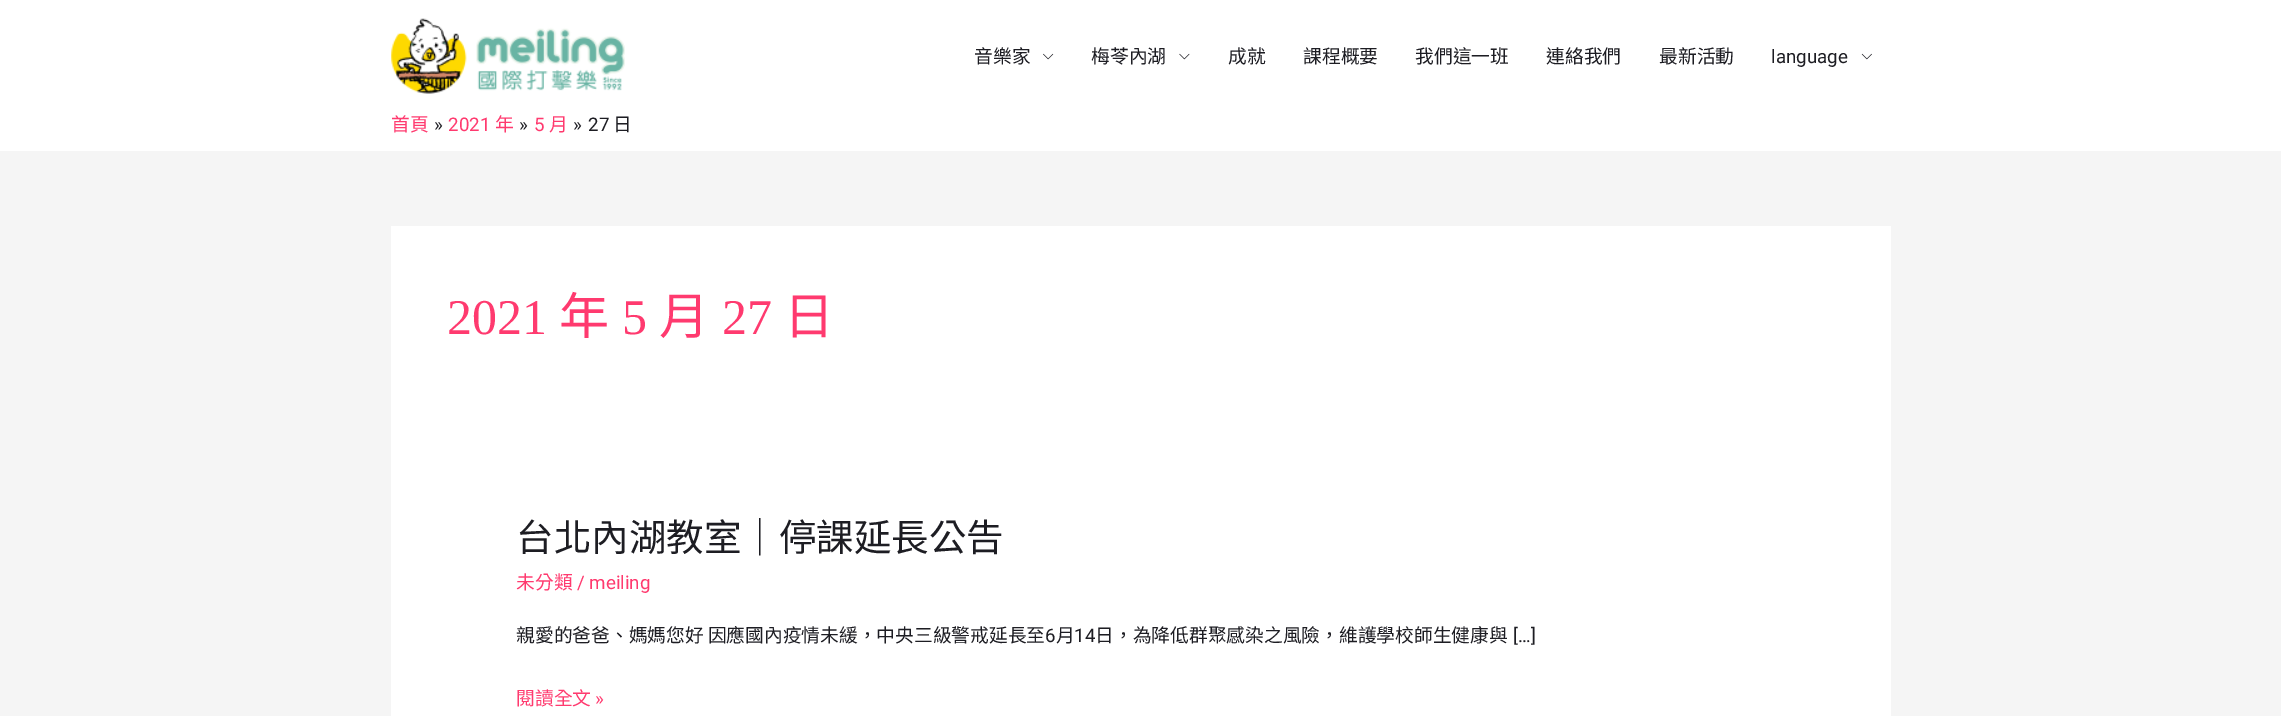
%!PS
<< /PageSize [2281 716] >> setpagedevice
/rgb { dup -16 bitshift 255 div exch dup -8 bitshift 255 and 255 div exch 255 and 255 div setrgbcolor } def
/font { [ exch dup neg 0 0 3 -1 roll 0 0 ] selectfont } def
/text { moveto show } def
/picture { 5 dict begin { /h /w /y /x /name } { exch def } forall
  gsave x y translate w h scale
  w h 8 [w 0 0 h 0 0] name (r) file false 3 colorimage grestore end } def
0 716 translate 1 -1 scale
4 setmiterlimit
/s1 { /NotoSansCJKTC-Regular 18.75 font 16#1D1D23 rgb } def
/s2 { /Roboto-Regular 18.75 font 16#1D1D23 rgb } def
/s3 { /NotoSansCJKTC-Regular 18.75 font 16#FF3A6F rgb } def
/s4 { /Roboto-Regular 18.75 font 16#FF3A6F rgb } def
/s5 { /LiberationSerif-Regular 50 font 16#FF3A6F rgb } def
/s6 { /NotoSansCJKTC-Regular 50 font 16#FF3A6F rgb } def
/s7 { /NotoSansCJKTC-Regular 37.5 font 16#1D1D23 rgb } def
16#F5F5F5 rgb
0 0 2281 716 rectfill
16#FFFFFF rgb
0 0 2281 151 rectfill
(pic1.raw) 391 18 234 76 picture
s1
(音樂家) 974 63 text
(pic2.raw) 1043 53 11 7 picture
(梅苓內湖) 1091 63 text
(pic3.raw) 1179 53 11 7 picture
(成就) 1228 63 text
(課程概要) 1303 63 text
(我們這一班) 1415 63 text
(連絡我們) 1546 63 text
(最新活動) 1659 63 text
s2
(language) 1771 63 text
(pic4.raw) 1861 53 11 7 picture
s3
(首頁) 391 131 text
s2
(») 434 131 text
s4
(2021) 448 131 text
s3
(年) 495 131 text
s2
(») 519 131 text
s4
(5) 534 131 text
s3
(月) 549 131 text
s2
(») 573 131 text
(27) 588 131 text
s1
(日) 613 131 text
16#FFFFFF rgb
391 226 1500 490 rectfill
s5
(2021) 447 334 text
s6
(年) 559 334 text
s5
(5) 622 334 text
s6
(月) 659 334 text
s5
(27) 722 334 text
s6
(日) 784 334 text
s7
(台北內湖教室｜停課延長公告) 516 551 text
s3
(未分類) 516 589 text
s4
(/ meiling) 577 589 text
s1
(親愛的爸爸、媽媽您好 因應國內疫情未緩，中央三級警戒延長至) 516 642 text
s2
(6) 1045 642 text
s1
(月) 1056 642 text
s2
(14) 1074 642 text
s1
(日，為降低群聚感染之風險，維護學校師生健康與) 1095 642 text
s2
([…]) 1513 642 text
s3
(閱讀全文) 516 705 text
s4
(») 595 705 text
showpage
